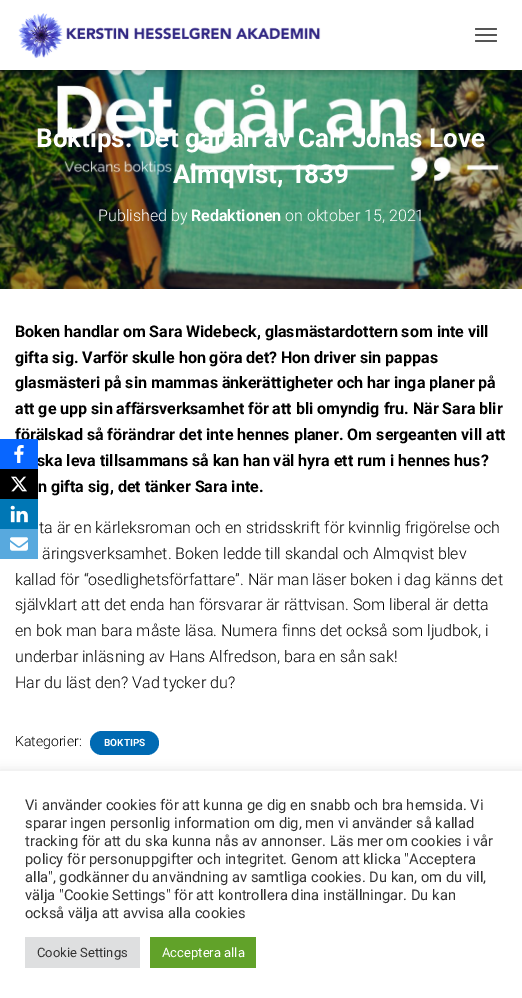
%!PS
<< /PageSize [522 998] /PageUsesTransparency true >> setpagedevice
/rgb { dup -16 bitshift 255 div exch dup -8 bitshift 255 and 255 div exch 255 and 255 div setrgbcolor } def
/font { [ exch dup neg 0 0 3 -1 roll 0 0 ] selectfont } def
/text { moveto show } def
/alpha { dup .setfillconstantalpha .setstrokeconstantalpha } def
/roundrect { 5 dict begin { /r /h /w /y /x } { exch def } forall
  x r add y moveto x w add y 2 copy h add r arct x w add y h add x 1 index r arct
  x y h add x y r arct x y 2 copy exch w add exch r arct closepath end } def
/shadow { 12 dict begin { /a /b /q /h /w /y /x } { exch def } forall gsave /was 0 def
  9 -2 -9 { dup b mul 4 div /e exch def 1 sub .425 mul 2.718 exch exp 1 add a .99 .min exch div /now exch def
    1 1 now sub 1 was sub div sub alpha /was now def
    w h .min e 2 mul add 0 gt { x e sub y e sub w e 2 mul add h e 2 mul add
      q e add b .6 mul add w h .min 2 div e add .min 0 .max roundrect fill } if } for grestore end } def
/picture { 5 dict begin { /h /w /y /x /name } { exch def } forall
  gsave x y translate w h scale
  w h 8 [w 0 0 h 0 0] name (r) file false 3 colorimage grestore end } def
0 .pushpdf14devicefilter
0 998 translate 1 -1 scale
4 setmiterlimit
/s1 { /Roboto-Bold 26 font 16#FFFFFF rgb } def
/s2 { /Roboto-Light 16 font 16#FFFFFF rgb } def
/s3 { /Roboto-Bold 16 font 16#FFFFFF rgb } def
/s4 { /Roboto-Bold 16 font 16#000000 rgb } def
/s5 { /Roboto-Light 16 font 16#000000 rgb } def
/s6 { /Roboto-Light 14 font 16#000000 rgb } def
/s7 { /Roboto-Bold 10 font 16#FFFFFF rgb } def
/s8 { /Roboto-Regular 14.7 font 16#333333 rgb } def
/s9 { /Roboto-Regular 13 font 16#333333 rgb } def
/s10 { /Roboto-Regular 13 font 16#FFFFFF rgb } def
16#FFFFFF rgb
0 0 522 998 rectfill
(pic2.raw) 0 70 522 219 picture
16#000000 rgb
2 6 518 66 0 2.5 0.1 shadow
0 1 522 70 0 5 0.12 shadow
6 7 510 58 0 5 0.42 shadow
16#FFFFFF rgb
0 0 522 70 rectfill
(pic1.raw) 18 13 303 45 picture
16#555555 rgb
475 28 22 2 1 roundrect fill
475 34 22 2 1 roundrect fill
475 40 22 2 1 roundrect fill
s1
(Boktips: Det går an av Carl Jonas Love) 36 147 text
(Almqvist, 1839) 173 183 text
s2
(Published by) 98 221 text
s3
(Redaktionen) 191 221 text
s2
(on oktober 15, 2021) 285 221 text
16#000000 rgb
-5 290 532 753 0 15 0.12 shadow
16#FFFFFF rgb
0 289 522 482 rectfill
s4
(Boken handlar om Sara Widebeck, glasmästardottern som inte vill) 15 337 text
(gifta sig. Varför skulle hon göra det? Hon driver sin pappas) 15 363 text
(glasmästeri på sin mammas änkerättigheter och har inga planer på) 15 388 text
(att ge upp sin affärsverksamhet för att bli omyndig fru. När Sara blir) 15 414 text
(förälskad så förändrar det inte hennes planer. Om sergeanten vill att) 15 440 text
(ska leva tillsammans så kan han väl hyra ett rum i hennes hus?) 37 466 text
(n gifta sig, det tänker Sara inte.) 38 492 text
s5
(ta är en kärleksroman och en stridsskrift för kvinnlig frigörelse och) 39 533 text
(äringsverksamhet. Boken ledde till skandal och Almqvist blev) 42 559 text
(kallad för “osedlighetsförfattare”. När man läser boken i dag känns det) 15 585 text
(självklart att det enda han försvarar är rättvisan. Som liberal är detta) 15 610 text
(en bok man bara måste läsa. Numera finns det också som ljudbok, i) 15 636 text
(underbar inläsning av Hans Alfredson, bara en sån sak!) 15 662 text
(Har du läst den? Vad tycker du?) 15 688 text
s6
(Kategorier:) 15 746 text
16#006AB3 rgb
90 731 69 24 12 roundrect fill
s7
(BOKTIPS) 104 746 text
16#0866FF rgb
0 439 38 30 rectfill
(pic3.raw) 14 445 10 18 picture
16#000000 rgb
0 469 38 30 rectfill
(pic4.raw) 11 476 16 16 picture
16#0077B5 rgb
0 499 38 30 rectfill
(pic5.raw) 10 505 18 18 picture
16#58A9DE rgb
0 529 38 30 rectfill
(pic6.raw) 10 537 18 14 picture
16#ACABAB rgb
0 770 522 227 0 5 0.3 shadow
16#FFFFFF rgb
0 771 522 227 rectfill
s8
(Vi använder cookies för att kunna ge dig en snabb och bra hemsida. Vi) 25 810 text
(sparar ingen personlig information om dig, men vi använder så kallad) 25 828 text
(tracking för att du ska kunna nås av annonser. Läs mer om cookies i vår) 25 846 text
(policy för personuppgifter och integritet. Genom att klicka "Acceptera) 25 864 text
(alla", godkänner du användning av samtliga cookies. Du kan, om du vill,) 25 882 text
(välja "Cookie Settings" för att kontrollera dina inställningar. Du kan) 25 900 text
(också välja att avvisa alla cookies) 25 918 text
16#DEDFE0 rgb
25 937 115 31 rectfill
s9
(Cookie Settings) 37 957 text
16#61A229 rgb
150 937 106 31 rectfill
s10
(Acceptera alla) 162 957 text
.poppdf14devicefilter showpage
